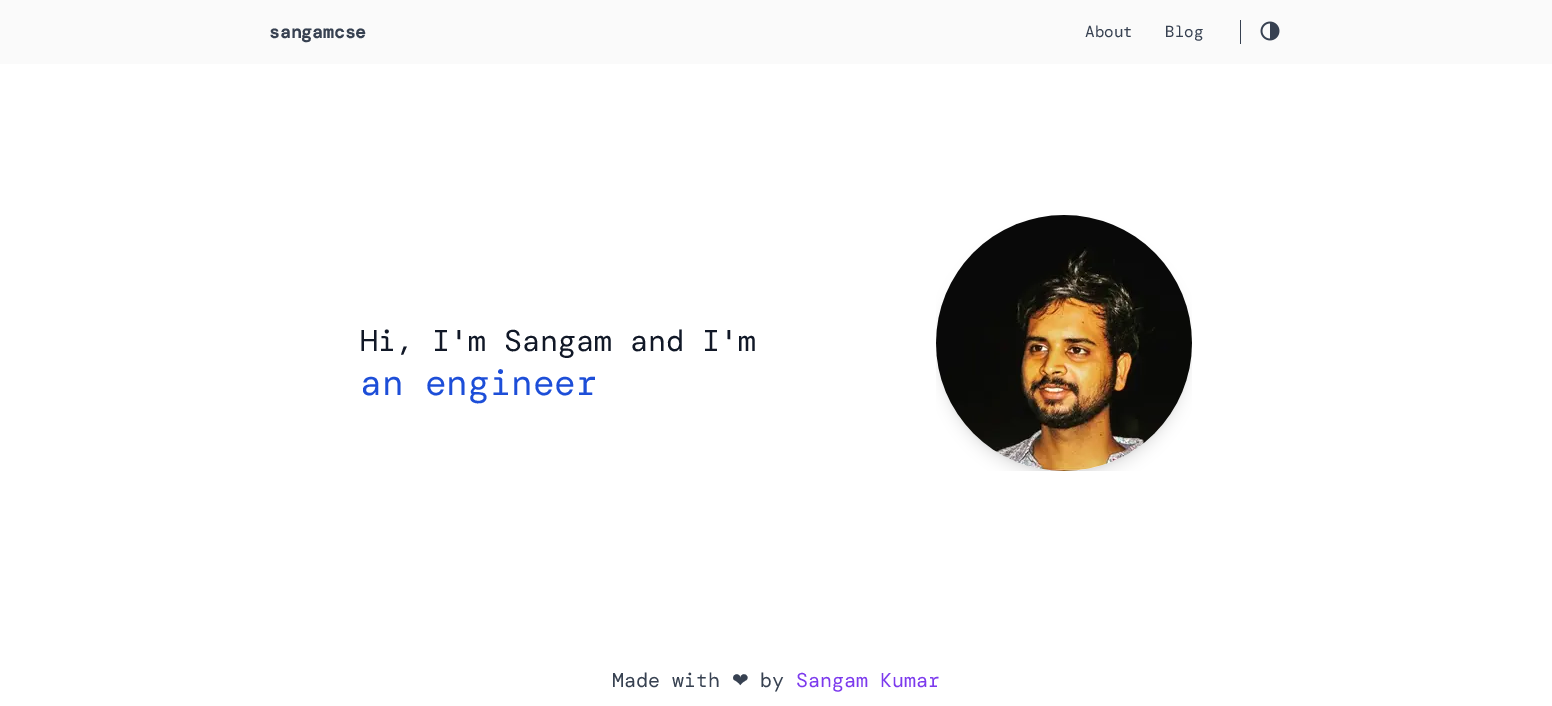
%!PS
<< /PageSize [1552 706] /PageUsesTransparency true >> setpagedevice
/rgb { dup -16 bitshift 255 div exch dup -8 bitshift 255 and 255 div exch 255 and 255 div setrgbcolor } def
/font { [ exch dup neg 0 0 3 -1 roll 0 0 ] selectfont } def
/text { moveto show } def
/alpha { dup .setfillconstantalpha .setstrokeconstantalpha } def
/roundrect { 5 dict begin { /r /h /w /y /x } { exch def } forall
  x r add y moveto x w add y 2 copy h add r arct x w add y h add x 1 index r arct
  x y h add x y r arct x y 2 copy exch w add exch r arct closepath end } def
/shadow { 12 dict begin { /a /b /q /h /w /y /x } { exch def } forall gsave /was 0 def
  9 -2 -9 { dup b mul 4 div /e exch def 1 sub .425 mul 2.718 exch exp 1 add a .99 .min exch div /now exch def
    1 1 now sub 1 was sub div sub alpha /was now def
    w h .min e 2 mul add 0 gt { x e sub y e sub w e 2 mul add h e 2 mul add
      q e add b .6 mul add w h .min 2 div e add .min 0 .max roundrect fill } if } for grestore end } def
/picture { 5 dict begin { /h /w /y /x /name } { exch def } forall
  gsave x y translate w h scale
  w h 8 [w 0 0 h 0 0] name (r) file false 3 colorimage grestore end } def
0 .pushpdf14devicefilter
0 706 translate 1 -1 scale
4 setmiterlimit
/s1 { /DMMono-Bold 18 font 16#374151 rgb } def
/s2 { /DMMono-Regular 16 font 16#374151 rgb } def
/s3 { /DMMono-Regular 30 font 16#111827 rgb } def
/s4 { /DMMono-Regular 36 font 16#1D4ED8 rgb } def
/s5 { /DMMono-Regular 20 font 16#374151 rgb } def
/s6 { /DejaVuSans-Regular 20 font 16#374151 rgb } def
/s7 { /DMMono-Regular 20 font 16#7C3AED rgb } def
16#FFFFFF rgb
0 0 1552 706 rectfill
16#FAFAFA rgb
0 0 1552 64 rectfill
s1
(sangamcse) 269 38 text
1240 20 1 24 rectfill
s2
(About) 1085 37 text
(Blog) 1165 37 text
(pic1.raw) 1260 21 20 20 picture
s3
(Hi, I'm Sangam and I'm) 360 351 text
s4
(an engineer) 360 395 text
gsave
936 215 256 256 rectclip
16#000000 rgb
940 223 248 248 124 3 0.1 shadow
939 228 250 250 125 7.5 0.1 shadow
grestore
(pic2.raw) 936 215 256 256 picture
s5
(Made with) 612 687 text
s6
(❤) 732 687 text
s5
(by) 760 687 text
s7
(Sangam Kumar) 796 687 text
.poppdf14devicefilter showpage
